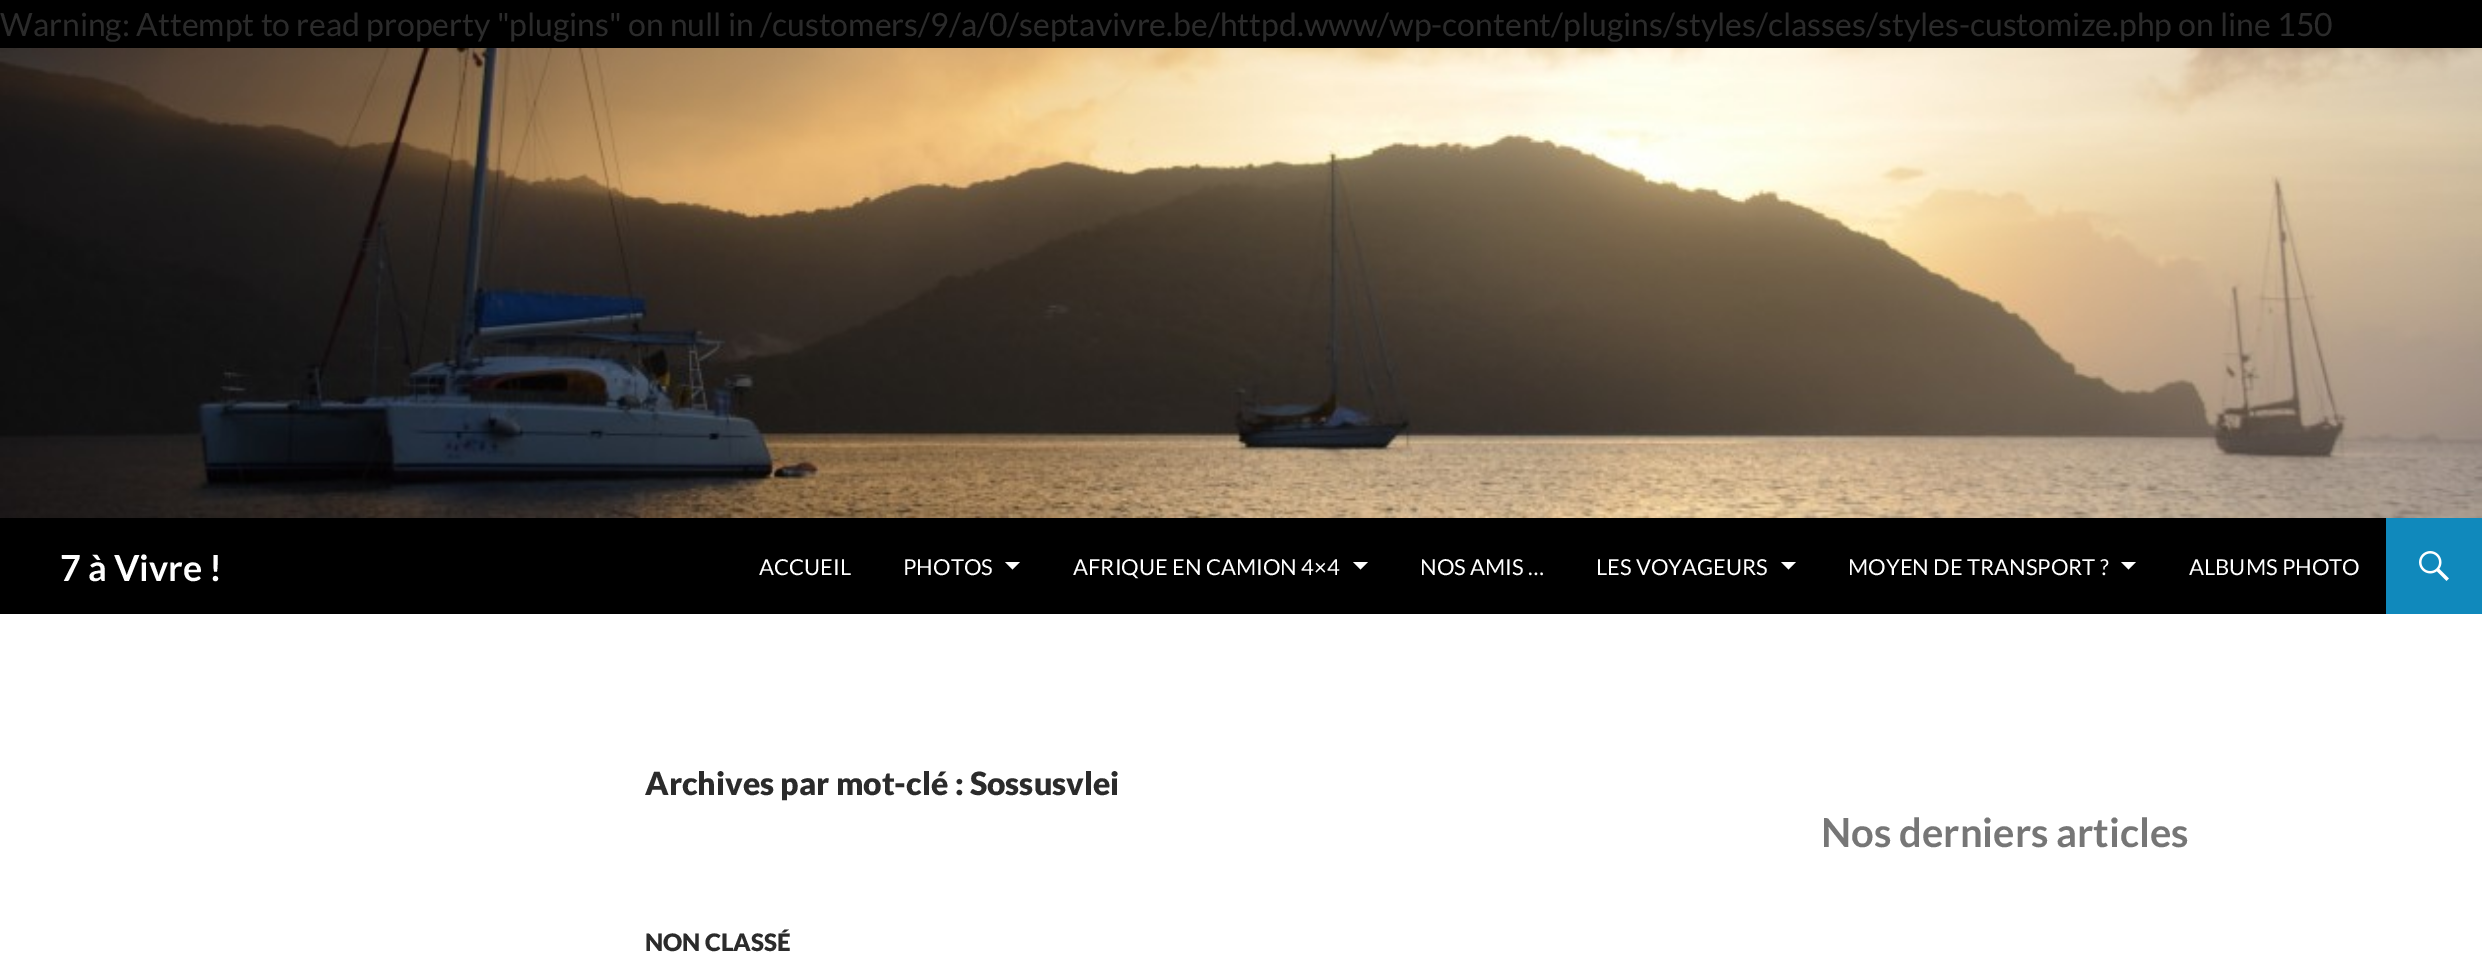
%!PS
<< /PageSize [2482 977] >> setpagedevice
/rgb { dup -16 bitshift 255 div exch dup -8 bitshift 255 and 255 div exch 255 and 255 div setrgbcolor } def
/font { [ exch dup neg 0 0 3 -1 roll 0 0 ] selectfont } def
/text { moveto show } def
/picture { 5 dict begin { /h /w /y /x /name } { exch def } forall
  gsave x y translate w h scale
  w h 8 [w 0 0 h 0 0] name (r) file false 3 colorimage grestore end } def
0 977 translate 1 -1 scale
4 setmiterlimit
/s1 { /Lato-Regular 32 font 16#2B2B2B rgb } def
/s2 { /Lato-Bold 36 font 16#FFFFFF rgb } def
/s3 { /Lato-Regular 22 font 16#FFFFFF rgb } def
/s4 { /Lato-Black 32 font 16#2B2B2B rgb } def
/s5 { /Lato-Black 24 font 16#2B2B2B rgb } def
/s6 { /Lato-Bold 40 font 16#767676 rgb } def
16#000000 rgb
0 0 2482 977 rectfill
s1
(Warning: Attempt to read property "plugins" on null in /customers/9/a/0/septavivre.be/httpd.www/wp-content/plugins/styles/classes/styles-customize.php on line 150) 0 36 text
16#FFFFFF rgb
0 614 2482 363 rectfill
(pic1.raw) 0 48 2482 470 picture
s2
(7 à Vivre !) 60 581 text
s3
(ACCUEIL) 759 575 text
(PHOTOS) 903 575 text
1005 562 moveto 1012.5 569.5 lineto 1020 562 lineto closepath fill
(AFRIQUE EN CAMION 4×4) 1073 575 text
1353 562 moveto 1360.5 569.5 lineto 1368 562 lineto closepath fill
(NOS AMIS …) 1420 575 text
(LES VOYAGEURS) 1596 575 text
1781 562 moveto 1788.5 569.5 lineto 1796 562 lineto closepath fill
(MOYEN DE TRANSPORT ?) 1848 575 text
2121 562 moveto 2128.5 569.5 lineto 2136 562 lineto closepath fill
(ALBUMS PHOTO) 2189 575 text
16#1089BC rgb
2386 518 96 96 rectfill
(pic2.raw) 2419 551 30 30 picture
s4
(Archives par mot-clé : Sossusvlei) 645 795 text
s5
(NON CLASSÉ) 645 951 text
s6
(Nos derniers articles) 1821 847 text
showpage
